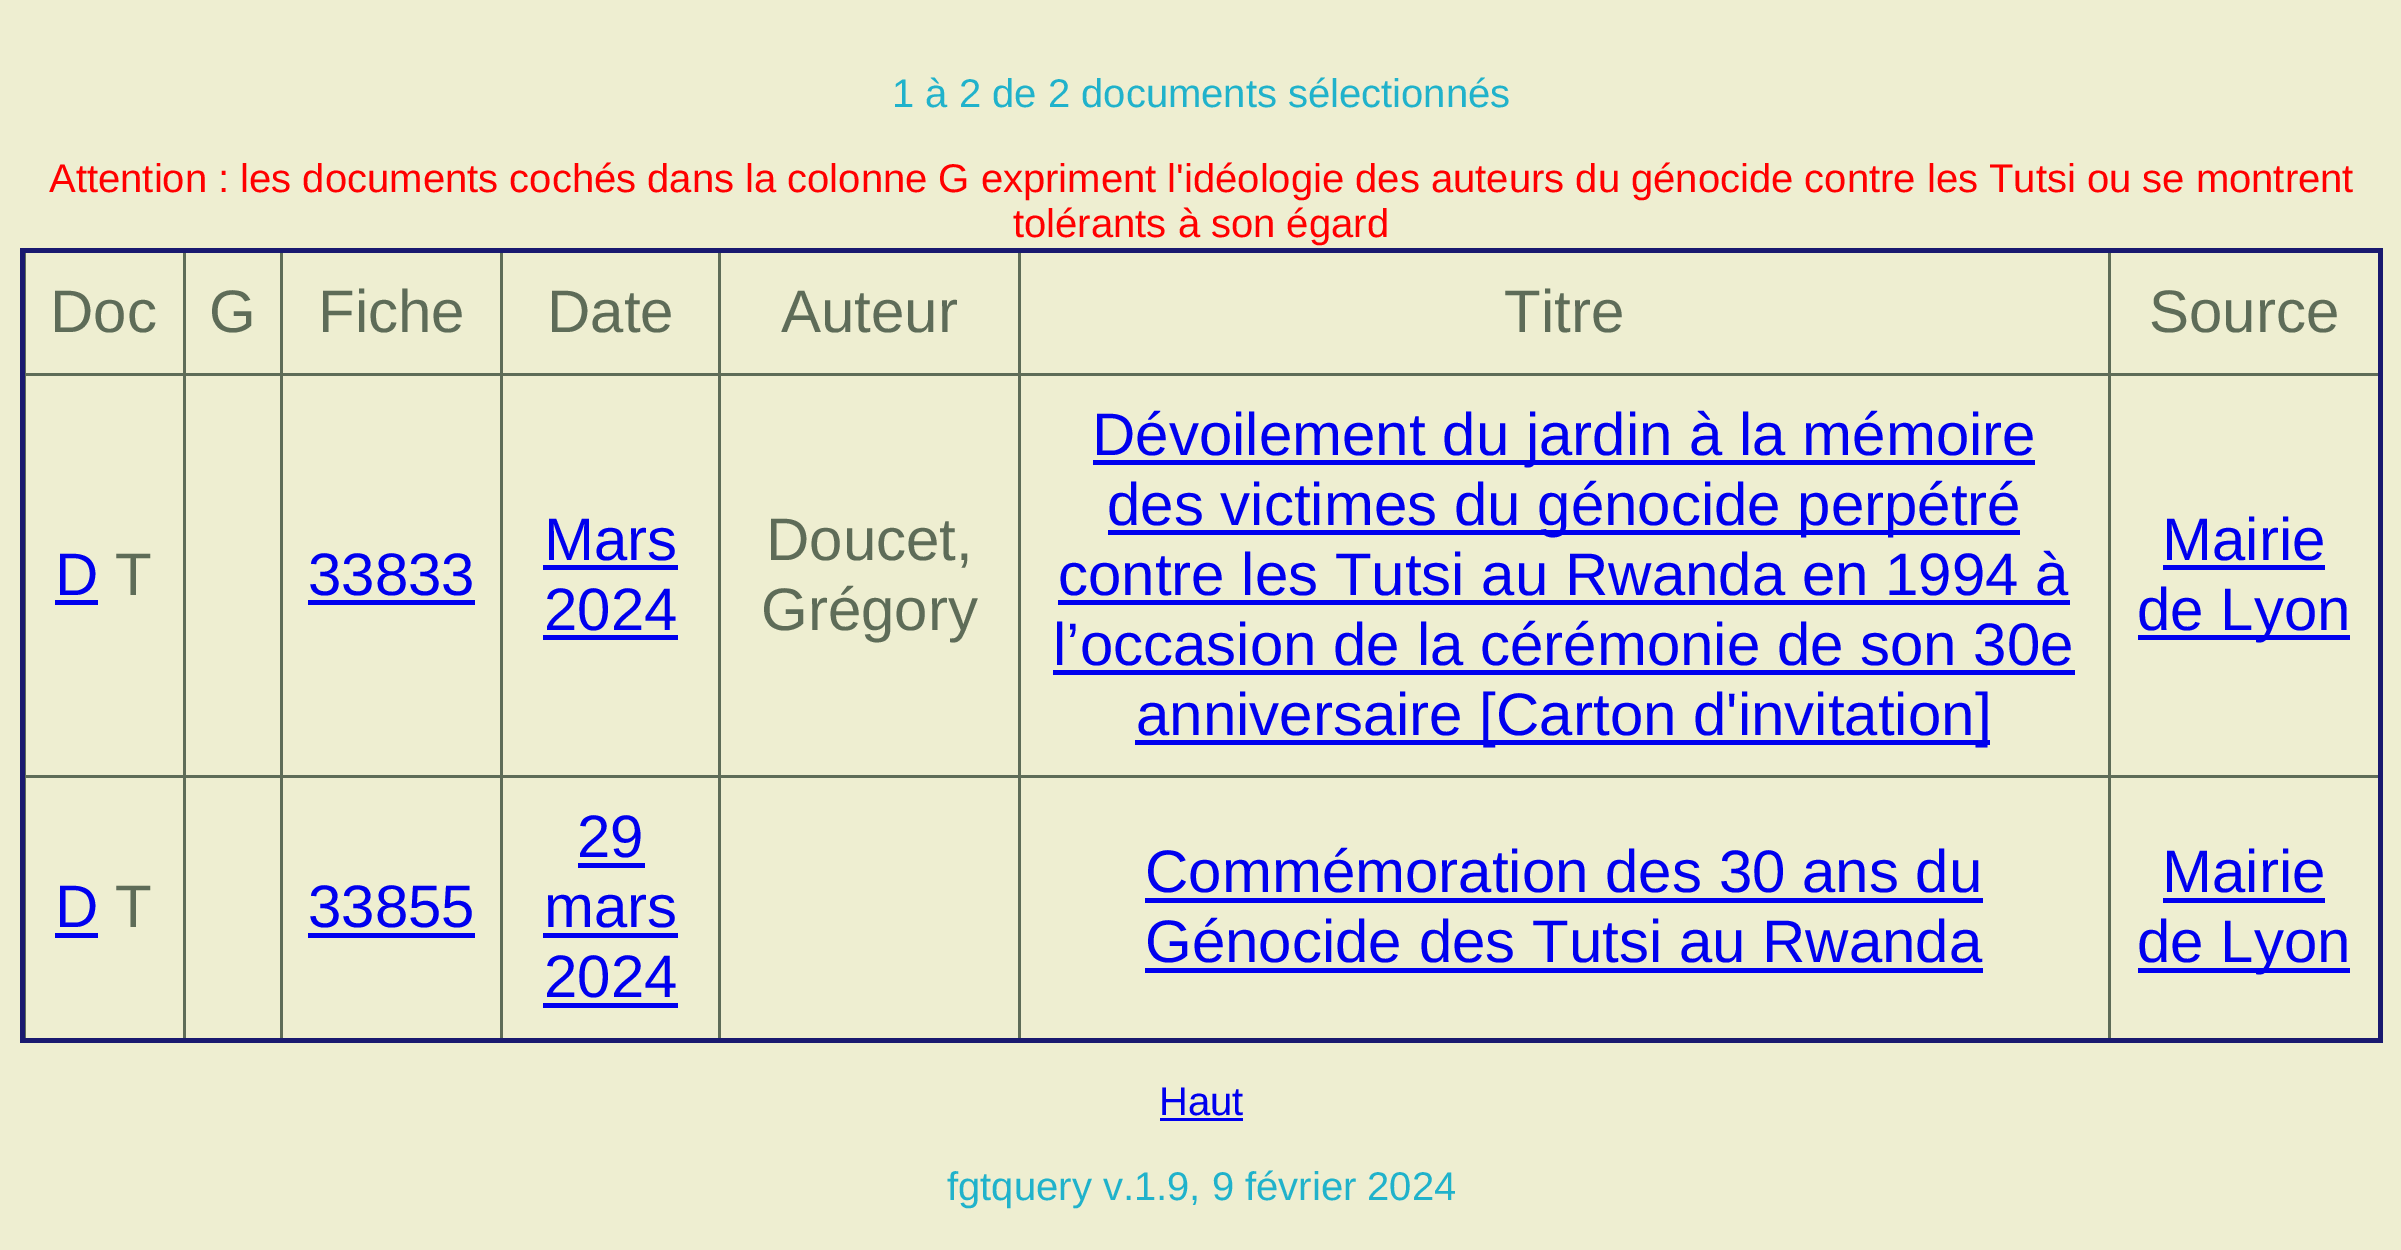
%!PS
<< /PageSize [2401 1250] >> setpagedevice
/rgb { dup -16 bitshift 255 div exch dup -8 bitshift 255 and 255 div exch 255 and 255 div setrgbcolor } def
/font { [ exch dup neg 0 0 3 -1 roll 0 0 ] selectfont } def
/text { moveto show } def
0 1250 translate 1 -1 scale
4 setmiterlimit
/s1 { /LiberationSans-Regular 40 font 16#20B2CB rgb } def
/s2 { /LiberationSans-Regular 40 font 16#FF0000 rgb } def
/s3 { /LiberationSans-Regular 60 font 16#5E6C58 rgb } def
/s4 { /LiberationSans-Regular 60 font 16#0000EE rgb } def
/s5 { /LiberationSans-Regular 40 font 16#0000EE rgb } def
16#EEEED1 rgb
0 0 2401 1250 rectfill
s1
(1 à 2 de 2 documents sélectionnés) 892 107 text
s2
(Attention : les documents cochés dans la colonne G expriment l'idéologie des auteurs du génocide contre les Tutsi ou se montrent) 49 192 text
(tolérants à son égard) 1013 237 text
16#5E6C58 rgb
23 373 2360 3 rectfill
23 775 2360 3 rectfill
25 775 1 265 rectfill
25 248 1 530 rectfill
183 248 3 792 rectfill
280 248 3 792 rectfill
500 248 3 792 rectfill
718 248 3 792 rectfill
1018 248 3 792 rectfill
2108 248 3 792 rectfill
16#191970 rgb
20 248 2363 5 rectfill
2378 248 5 795 rectfill
20 1038 2363 5 rectfill
20 248 5 795 rectfill
s3
(Doc) 50 332 text
(G) 209 332 text
(Fiche) 318 332 text
(Date) 547 332 text
(Auteur) 781 332 text
(Titre) 1504 332 text
(Source) 2149 332 text
s4
(D) 55 595 text
55 600 43 5 rectfill
s3
(T) 115 595 text
s4
(33833) 308 595 text
308 600 167 5 rectfill
(Mars) 544 560 text
543 565 135 5 rectfill
(2024) 544 630 text
543 635 135 5 rectfill
s3
(Doucet,) 766 560 text
(Grégory) 761 630 text
16#0000EE rgb
1093 460 942 5 rectfill
(Dévoilement du jardin à la mémoire) 1092 455 text
1108 530 912 5 rectfill
(des victimes du génocide perpétré) 1107 525 text
(contre les Tutsi au Rwanda en 1994 à) 1058 595 text
1058 600 1012 5 rectfill
(l’occasion de la cérémonie de son 30e) 1053 665 text
1053 670 1022 5 rectfill
1135 740 855 5 rectfill
(anniversaire [Carton d'invitation]) 1136 735 text
(Mairie) 2162 560 text
2163 565 162 5 rectfill
2138 635 212 5 rectfill
(de Lyon) 2137 630 text
(D) 55 927 text
55 933 43 5 rectfill
s3
(T) 115 927 text
s4
(33855) 308 927 text
308 933 167 5 rectfill
(29) 577 857 text
578 863 67 5 rectfill
(mars) 544 927 text
543 933 135 5 rectfill
(2024) 544 997 text
543 1003 135 5 rectfill
(Commémoration des 30 ans du) 1145 892 text
1145 898 838 5 rectfill
(Génocide des Tutsi au Rwanda) 1145 962 text
1145 968 838 5 rectfill
(Mairie) 2162 892 text
2163 898 162 5 rectfill
2138 968 212 5 rectfill
(de Lyon) 2137 962 text
s5
(Haut) 1159 1115 text
1160 1118 83 3 rectfill
s1
(fgtquery v.1.9, 9 février 2024) 947 1200 text
showpage
